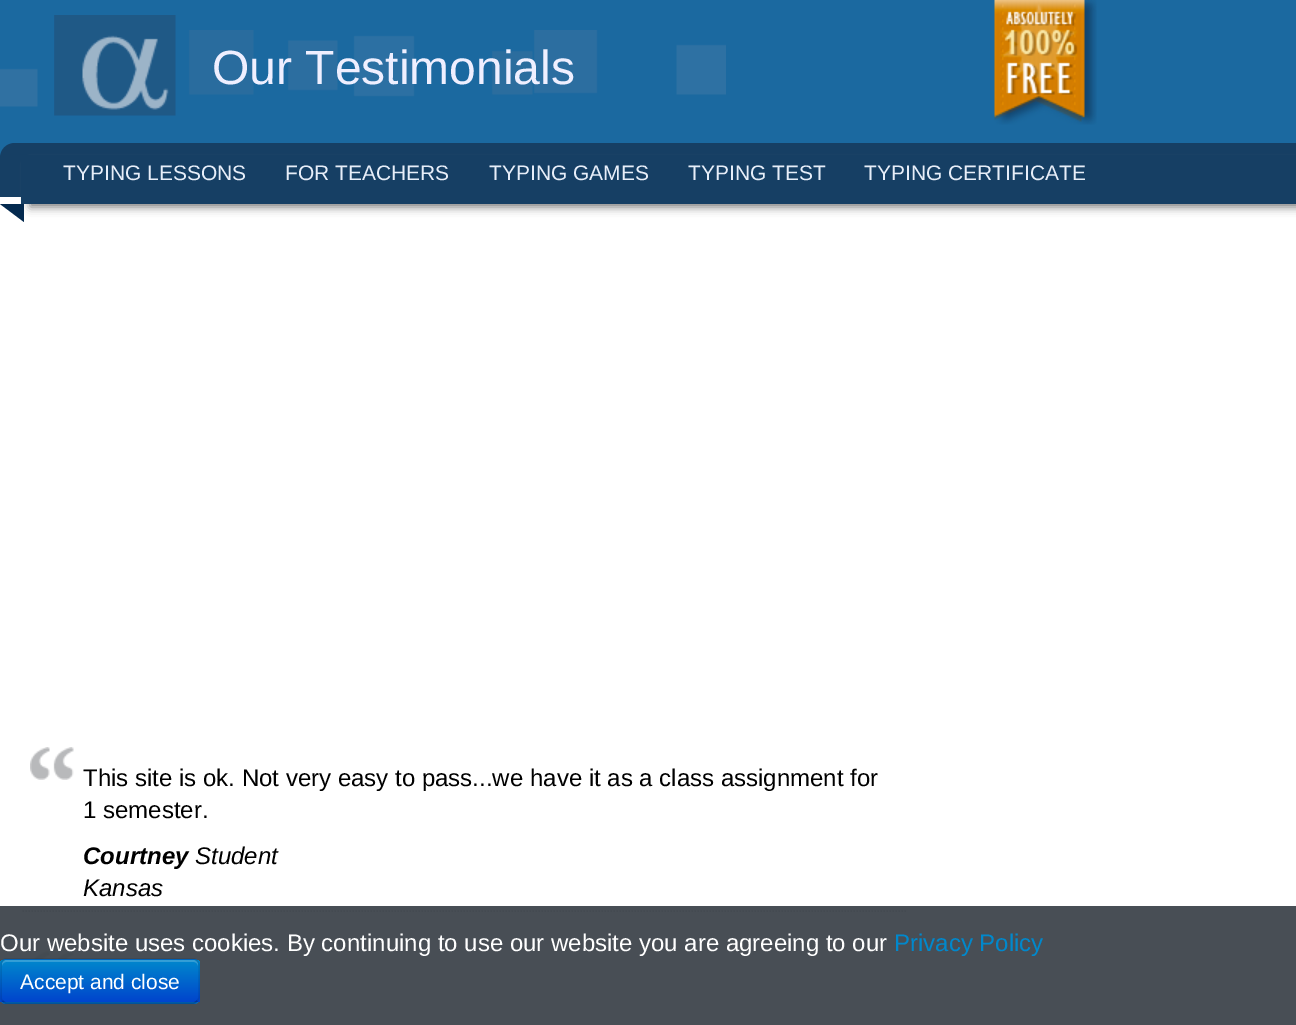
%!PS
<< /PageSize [1296 1025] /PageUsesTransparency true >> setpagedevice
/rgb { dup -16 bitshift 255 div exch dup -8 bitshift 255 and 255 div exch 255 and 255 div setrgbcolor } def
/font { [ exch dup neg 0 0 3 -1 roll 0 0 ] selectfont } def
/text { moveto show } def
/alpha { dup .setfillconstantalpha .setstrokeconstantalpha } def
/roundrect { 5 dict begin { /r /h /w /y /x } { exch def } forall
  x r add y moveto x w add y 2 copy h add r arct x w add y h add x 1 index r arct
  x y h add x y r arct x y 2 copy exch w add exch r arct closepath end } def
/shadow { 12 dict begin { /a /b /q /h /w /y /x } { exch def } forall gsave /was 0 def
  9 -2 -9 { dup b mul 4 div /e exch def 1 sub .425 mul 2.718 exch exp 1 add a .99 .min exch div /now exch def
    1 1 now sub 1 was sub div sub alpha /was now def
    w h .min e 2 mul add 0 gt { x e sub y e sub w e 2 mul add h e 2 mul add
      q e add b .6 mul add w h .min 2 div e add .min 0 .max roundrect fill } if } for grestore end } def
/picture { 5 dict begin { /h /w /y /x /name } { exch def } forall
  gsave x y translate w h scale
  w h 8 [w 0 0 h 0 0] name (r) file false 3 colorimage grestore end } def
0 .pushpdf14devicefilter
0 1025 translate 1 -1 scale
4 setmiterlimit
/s1 { /LiberationSans-Regular 48 font 16#EFEFFF rgb } def
/s2 { /LiberationSans-Regular 21 font 16#E7EEF9 rgb } def
/s3 { /LiberationSans-Regular 24 font 16#000000 rgb } def
/s4 { /LiberationSans-BoldItalic 24 font 16#000000 rgb } def
/s5 { /LiberationSans-Italic 24 font 16#000000 rgb } def
/s6 { /LiberationSans-Regular 24 font 16#FFFFFF rgb } def
/s7 { /LiberationSans-Regular 24 font 16#0088CC rgb } def
/s8 { /LiberationSans-Regular 21 font 16#FFFFFF rgb } def
16#1B69A0 rgb
0 0 1296 1025 rectfill
(pic1.raw) 0 30 726 77 picture
(pic2.raw) 54 15 122 101 picture
s1
(Our Testimonials) 212 84 text
(pic3.raw) 994 0 103 125 picture
16#163F64 rgb
15 143 moveto 1296 143 lineto 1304.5 143 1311 149.5 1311 158 curveto 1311 204 lineto 0 204 lineto 0 158 lineto 0 149.5 6.5 143 15 143 curveto closepath fill
16#FFFFFF rgb
0 197 1296 709 rectfill
16#7A7A7A rgb
30 164 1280 43 0 4.5 1 shadow
16#163F64 rgb
21 155 1275 49 rectfill
s2
(TYPING LESSONS) 63 180 text
(FOR TEACHERS) 285 180 text
(TYPING GAMES) 489 180 text
(TYPING TEST) 688 180 text
(TYPING CERTIFICATE) 864 180 text
16#042A4F rgb
0 204 moveto 24 204 lineto 24 222 lineto closepath fill
16#484E55 rgb
0 906 1296 119 rectfill
16#444A51 rgb
1.5 setlinewidth
[1.5 1.5] 0 setdash
22.5 911 moveto 907.5 911 lineto stroke
(pic4.raw) 30 747 44 33 picture
s3
(This site is ok. Not very easy to pass...we have it as a class assignment for) 83 786 text
(1 semester.) 83 818 text
s4
(Courtney) 83 864 text
s5
(Student) 195 864 text
(Kansas) 83 896 text
(pic5.raw) 32 951 42 8 picture
s6
(Our website uses cookies. By continuing to use our website you are agreeing to our) 0 951 text
s7
(Privacy Policy) 894 951 text
16#006DCC rgb
0 959 200 45 6 roundrect fill
gsave
0 959 200 45 6 roundrect clip newpath
gsave 0 960 moveto 200 960 lineto 200 1002 lineto 0 1002 lineto closepath clip newpath
<< /ShadingType 2 /ColorSpace /DeviceRGB /Coords [100 960 100 1002] /Extend [true true] /Function << /FunctionType 2 /Domain [0 1] /C0 [0 0.533 0.8] /C1 [0 0.267 0.8] /N 1 >> >> shfill grestore
grestore
0.2 alpha
16#FFFFFF rgb
6 962 moveto 194 962 lineto 196 962 198 964 198 966 curveto 198 965 lineto 198 962 196 960 193 960 curveto 7 960 lineto 4 960 2 962 2 965 curveto 2 966 lineto 2 964 4 962 6 962 curveto closepath fill
0.25 alpha
16#000000 rgb
[] 0 setdash
197 1001 moveto 196 1002 195 1003 193.5 1003 curveto 6 1003 lineto 4.5 1003 3.5 1002 2.5 1001 curveto stroke
0.1 alpha
2.5 1001 moveto 1.5 1000 1 999 1 997.5 curveto 1 964.5 lineto 1 963 1.5 962 2.5 961 curveto 3.5 960 4.5 959 6 959 curveto 193.5 959 lineto 195 959 196 960 197 961 curveto 198 962 199 963 199 964.5 curveto 199 997.5 lineto 199 999 198 1000 197 1001 curveto stroke
1 alpha
s8
(Accept and close) 20 989 text
.poppdf14devicefilter showpage
